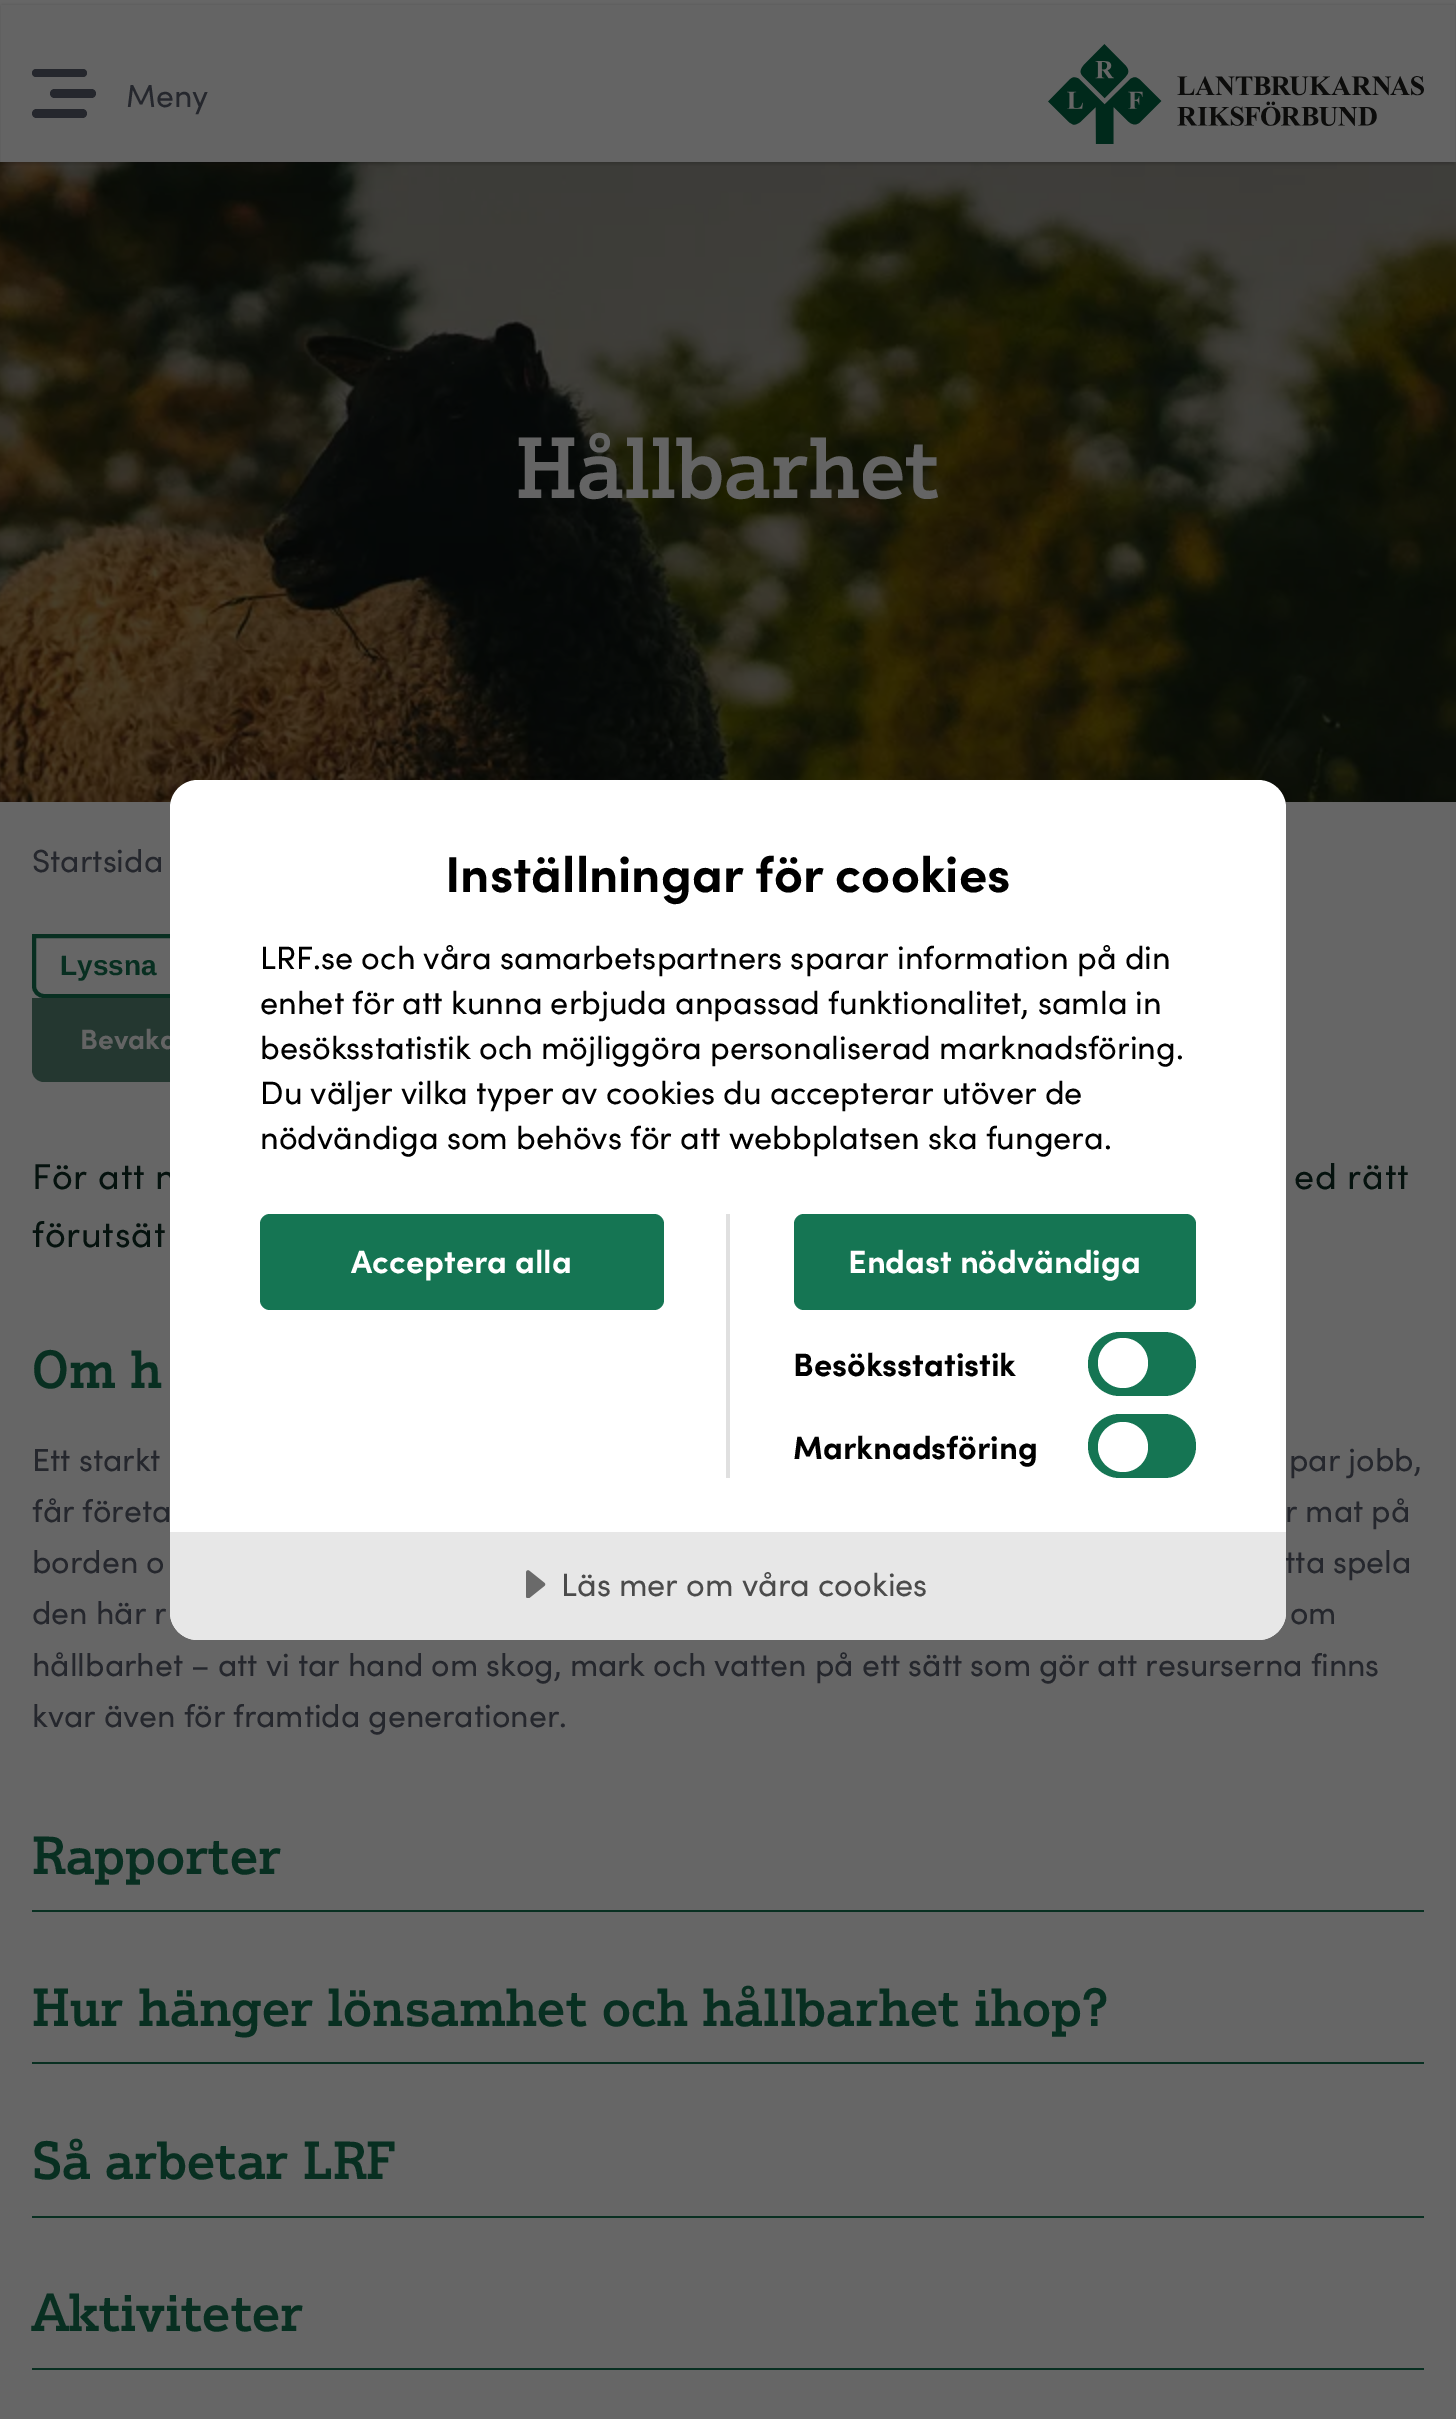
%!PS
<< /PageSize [1456 2419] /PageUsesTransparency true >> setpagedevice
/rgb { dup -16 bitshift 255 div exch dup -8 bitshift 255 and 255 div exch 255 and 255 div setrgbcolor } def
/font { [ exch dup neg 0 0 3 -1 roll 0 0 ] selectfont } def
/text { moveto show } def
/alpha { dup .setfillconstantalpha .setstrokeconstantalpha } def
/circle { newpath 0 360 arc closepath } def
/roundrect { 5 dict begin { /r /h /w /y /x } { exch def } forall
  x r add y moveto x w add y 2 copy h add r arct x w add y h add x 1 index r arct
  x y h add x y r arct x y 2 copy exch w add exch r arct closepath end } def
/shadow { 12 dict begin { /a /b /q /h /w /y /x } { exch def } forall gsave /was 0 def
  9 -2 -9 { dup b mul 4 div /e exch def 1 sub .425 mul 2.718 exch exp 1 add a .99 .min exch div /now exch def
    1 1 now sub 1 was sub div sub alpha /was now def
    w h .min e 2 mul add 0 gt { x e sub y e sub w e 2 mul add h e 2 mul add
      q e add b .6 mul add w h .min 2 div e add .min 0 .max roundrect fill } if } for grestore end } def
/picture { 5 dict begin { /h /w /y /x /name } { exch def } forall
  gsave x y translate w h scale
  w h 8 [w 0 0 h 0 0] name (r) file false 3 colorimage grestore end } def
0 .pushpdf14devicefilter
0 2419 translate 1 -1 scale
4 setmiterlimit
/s1 { /Sofia-Regular 32 font 16#25272D rgb } def
/s2 { /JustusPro-Medium 84 font 16#646464 rgb } def
/s3 { /LiberationSans-Bold 28 font 16#082F21 rgb } def
/s4 { /Sofia-Bold 28 font 16#646464 rgb } def
/s5 { /JustusPro-Medium 52 font 16#082F21 rgb } def
/s6 { /Sofia-Bold 50.4 font 16#000000 rgb } def
/s7 { /Sofia-Regular 32.4 font 16#000000 rgb } def
/s8 { /Sofia-Bold 32.4 font 16#FFFFFF rgb } def
/s9 { /Sofia-Bold 32.4 font 16#000000 rgb } def
/s10 { /Sofia-Regular 32.4 font 16#4B4B4B rgb } def
16#666666 rgb
0 0 1456 2419 rectfill
(pic2.raw) 0 162 1456 640 picture
16#000000 rgb
2 6 1452 158 0 2 0.2 shadow
16#646464 rgb
1 5 1454 157 rectfill
16#25272D rgb
32 69 55 8 4 roundrect fill
50 89 46 9 4.5 roundrect fill
32 109 55 9 4.5 roundrect fill
s1
(Meny) 126 107 text
(pic1.raw) 1048 44 376 100 picture
s2
(Hållbarhet) 516 498 text
s1
(Startsida) 32 872 text
16#082F21 rgb
4 setlinewidth
34 936 moveto 224 936 lineto 229.5 936 234 940.5 234 946 curveto 234 996 lineto 44 996 lineto 38.5 996 34 991.5 34 986 curveto closepath stroke
s3
(Lyssna) 60 975 text
16#243730 rgb
32 998 moveto 366 998 lineto 372.5 998 378 1003.5 378 1010 curveto 378 1082 lineto 44 1082 lineto 37.5 1082 32 1076.5 32 1070 curveto closepath fill
s4
(Bevaka) 80 1049 text
/Sofia-Regular 36 font
16#05120E rgb
32 1189 moveto 0.75 0 (För att n) ashow
1294 1189 moveto 0.75 0 (ed rätt) ashow
32 1247 moveto 0.75 0 (förutsät) ashow
s5
(Om h) 32 1388 text
s1
(Ett starkt) 32 1471 text
(par jobb,) 1289 1471 text
(får företa) 32 1522 text
(r mat på) 1285 1522 text
(borden o) 32 1573 text
(tta spela) 1285 1573 text
(den här r) 32 1624 text
(om) 1290 1624 text
(hållbarhet – att vi tar hand om skog, mark och vatten på ett sätt som gör att resurserna finns) 32 1676 text
(kvar även för framtida generationer.) 32 1727 text
16#082F21 rgb
32 1910 1392 2 rectfill
s5
(Rapporter) 32 1874 text
32 2062 1392 2 rectfill
(Hur hänger lönsamhet och hållbarhet ihop?) 32 2026 text
32 2216 1392 2 rectfill
(Så arbetar LRF) 32 2179 text
32 2368 1392 2 rectfill
(Aktiviteter) 32 2331 text
16#FFFFFF rgb
170 780 1116 860 28 roundrect fill
s6
(Inställningar för cookies) 445 892 text
s7
(LRF.se och våra samarbetspartners sparar information på din) 260 969 text
(enhet för att kunna erbjuda anpassad funktionalitet, samla in) 260 1014 text
(besöksstatistik och möjliggöra personaliserad marknadsföring.) 260 1059 text
(Du väljer vilka typer av cookies du accepterar utöver de) 260 1104 text
(nödvändiga som behövs för att webbplatsen ska fungera.) 260 1149 text
16#E0E0E0 rgb
726 1214 4 264 rectfill
16#157553 rgb
260 1214 404 96 10 roundrect fill
s8
(Acceptera alla) 351 1273 text
16#157553 rgb
794 1214 402 96 10 roundrect fill
s8
(Endast nödvändiga) 848 1273 text
s9
(Besöksstatistik) 793 1376 text
16#157553 rgb
1088 1332 108 64 32 roundrect fill
16#FFFFFF rgb
1123 1363 25 circle fill
s9
(Marknadsföring) 793 1459 text
16#157553 rgb
1088 1414 108 64 32 roundrect fill
16#FFFFFF rgb
1123 1447 25 circle fill
16#E7E7E7 rgb
170 1532 moveto 1286 1532 lineto 1286 1612 lineto 1286 1627.5 1273.5 1640 1258 1640 curveto 198 1640 lineto 182.5 1640 170 1627.5 170 1612 curveto closepath fill
(pic3.raw) 526 1570 20 28 picture
s10
(Läs mer om våra cookies) 561 1596 text
.poppdf14devicefilter showpage
